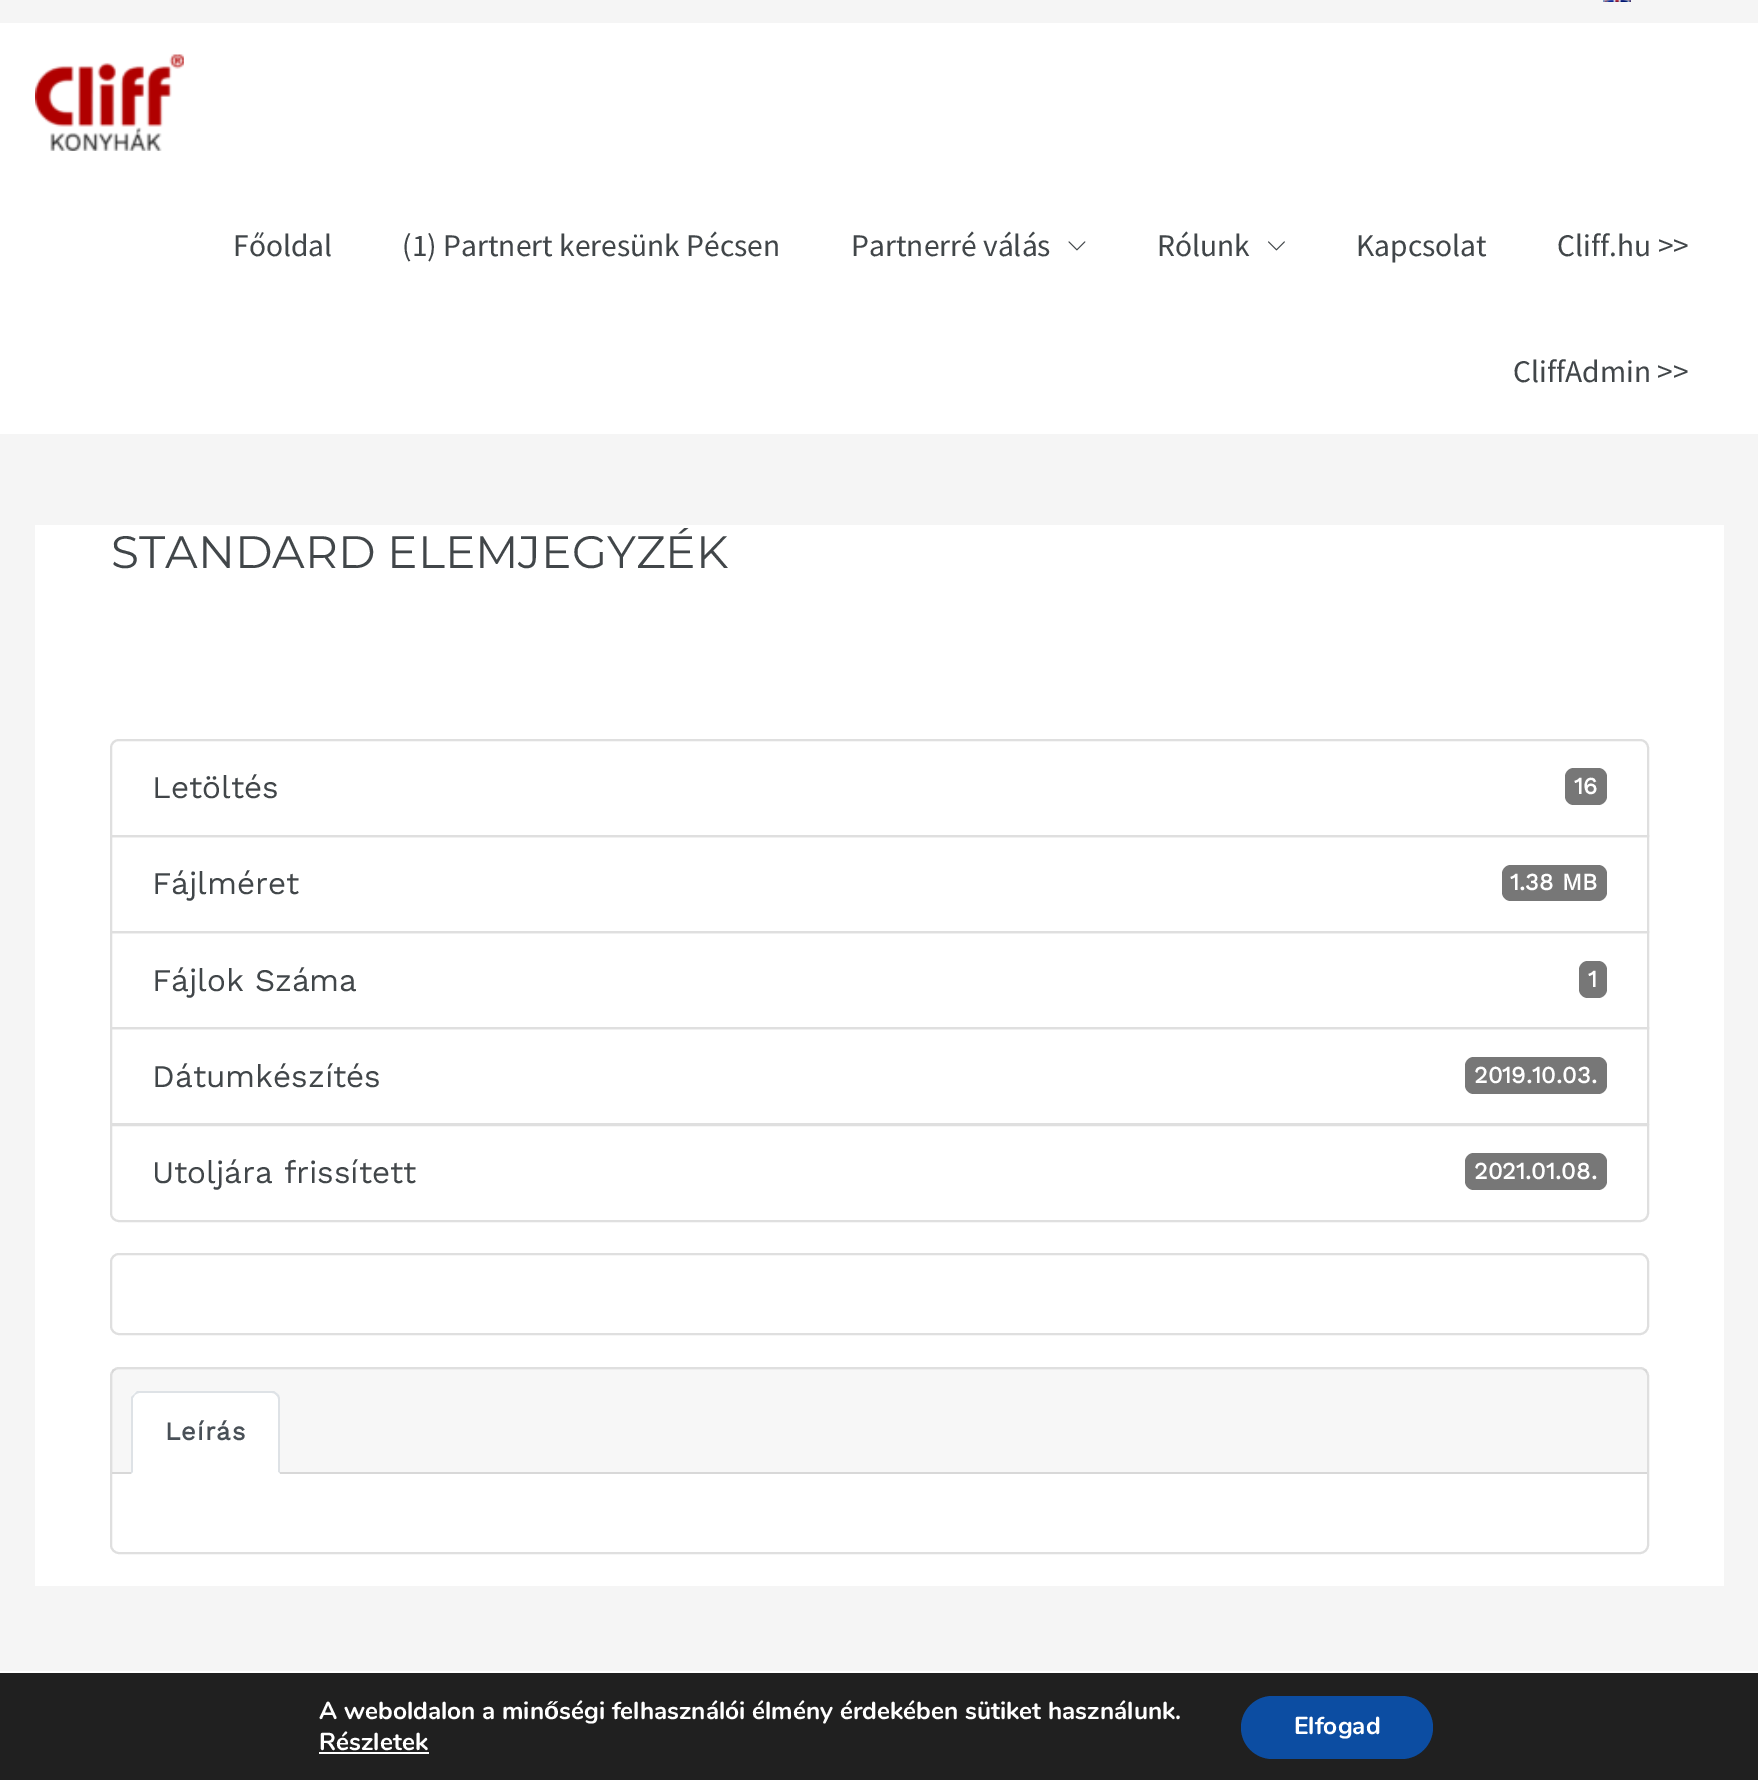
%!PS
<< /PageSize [1758 1780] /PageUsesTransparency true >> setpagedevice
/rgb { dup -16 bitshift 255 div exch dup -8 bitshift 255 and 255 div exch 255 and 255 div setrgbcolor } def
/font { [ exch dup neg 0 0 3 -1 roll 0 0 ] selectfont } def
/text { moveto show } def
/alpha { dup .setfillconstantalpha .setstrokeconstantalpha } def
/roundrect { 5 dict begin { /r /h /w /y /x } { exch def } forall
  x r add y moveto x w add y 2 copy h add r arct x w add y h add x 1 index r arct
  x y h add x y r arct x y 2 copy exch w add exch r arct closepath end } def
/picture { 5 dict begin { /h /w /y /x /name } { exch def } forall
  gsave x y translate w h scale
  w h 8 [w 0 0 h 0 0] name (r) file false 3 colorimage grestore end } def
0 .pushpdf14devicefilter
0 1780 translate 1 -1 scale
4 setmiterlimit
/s1 { /SourceSansPro-Regular 31.5 font 16#414649 rgb } def
/s2 { /Montserrat-Regular 45.5 font 16#414649 rgb } def
/s3 { /WorkSans-Regular 31.5 font 16#414649 rgb } def
/s4 { /WorkSans-Bold 23.5 font 16#FFFFFF rgb } def
/s5 { /Nunito-Bold 24.5 font 16#FFFFFF rgb } def
/s6 { /LiberationSans-Bold 24.5 font 16#FFFFFF rgb } def
16#F5F5F5 rgb
0 0 1758 1780 rectfill
(pic1.raw) 1603 0 28 2 picture
16#FFFFFF rgb
0 23 1758 411 rectfill
(pic2.raw) 35 54 149 97 picture
s1
(Főoldal) 233 256 text
(\(1\) Partnert keresünk Pécsen) 402 256 text
(Partnerré válás) 851 256 text
(pic3.raw) 1068 241 18 10 picture
(Rólunk) 1157 256 text
(pic4.raw) 1268 241 17 10 picture
(Kapcsolat) 1356 256 text
(Cliff.hu >>) 1557 256 text
(CliffAdmin >>) 1513 382 text
16#FFFFFF rgb
35 525 1689 1061 rectfill
s2
(STANDARD ELEMJEGYZÉK) 111 568 text
16#DFDFDF rgb
2 setlinewidth
119 740 moveto 1640 740 lineto 1644.5 740 1648 743.5 1648 748 curveto 1648 836 lineto 111 836 lineto 111 748 lineto 111 743.5 114.5 740 119 740 curveto closepath stroke
s3
(Letöltés) 152 798 text
16#777777 rgb
1565 768 42 37 9 roundrect fill
s4
(16) 1574 794 text
16#DFDFDF rgb
111 836 1537 96 rectstroke
s3
(Fájlméret) 152 894 text
16#777777 rgb
1502 865 105 36 9 roundrect fill
s4
(1.38 MB) 1510 890 text
16#DFDFDF rgb
111 932 1537 96 rectstroke
s3
(Fájlok Száma) 152 991 text
16#777777 rgb
1579 961 28 37 9 roundrect fill
s4
(1) 1588 987 text
16#DFDFDF rgb
111 1028 1537 96 rectstroke
s3
(Dátumkészítés) 152 1087 text
16#777777 rgb
1465 1057 142 37 9 roundrect fill
s4
(2019.10.03.) 1474 1083 text
111 1125 moveto 1648 1125 lineto 1648 1213 lineto 1648 1217.5 1644.5 1221 1640 1221 curveto 119 1221 lineto 114.5 1221 111 1217.5 111 1213 curveto closepath gsave fill grestore
16#DFDFDF rgb
stroke
s3
(Utoljára frissített) 152 1183 text
16#777777 rgb
1465 1153 142 37 9 roundrect fill
s4
(2021.01.08.) 1474 1179 text
16#DFDFDF rgb
111 1254 1537 80 8 roundrect stroke
111 1368 1537 185 8 roundrect stroke
0.03 alpha
16#000000 rgb
112 1369 1535 103 rectfill
1 alpha
16#D8D8D8 rgb
112 1472 1535 2 rectfill
16#FFFFFF rgb
140 1391 moveto 271 1391 lineto 276 1391 280 1395 280 1400 curveto 280 1474 lineto 131 1474 lineto 131 1400 lineto 131 1395 135 1391 140 1391 curveto closepath fill
16#DEE2E6 rgb
139 1393 moveto 138 1393 136 1394 135 1395 curveto 134 1394 lineto 137 1391 lineto 274 1391 lineto 278 1394 lineto 276 1395 lineto 275 1394 274 1393 272 1393 curveto closepath fill
280 1474 moveto 280 1399 lineto 280 1397 279 1395 278 1394 curveto 276 1395 lineto 277 1396 278 1397 278 1399 curveto 278 1472 lineto closepath fill
16#FFFFFF rgb
280 1474 moveto 278 1472 lineto 133 1472 lineto 131 1474 lineto closepath fill
16#DEE2E6 rgb
131 1474 moveto 131 1397 lineto 134 1394 lineto 135 1395 lineto 133 1398 lineto 133 1472 lineto closepath fill
/WorkSans-Bold 25.5 font
16#495057 rgb
165 1440 moveto 1 0 (Leírás) ashow
16#202020 rgb
0 1673 1758 107 rectfill
16#FFFFFF rgb
0 1671 1758 2 rectfill
s5
(A weboldalon a min) 319 1719 text
s6
(ő) 544 1719 text
s5
(ségi felhasználói élmény érdekében sütiket használunk.) 559 1719 text
(Részletek) 319 1750 text
319 1752 110 2 rectfill
16#0C4DA2 rgb
1241 1696 192 63 31.5 roundrect fill
s5
(Elfogad) 1294 1734 text
.poppdf14devicefilter showpage
